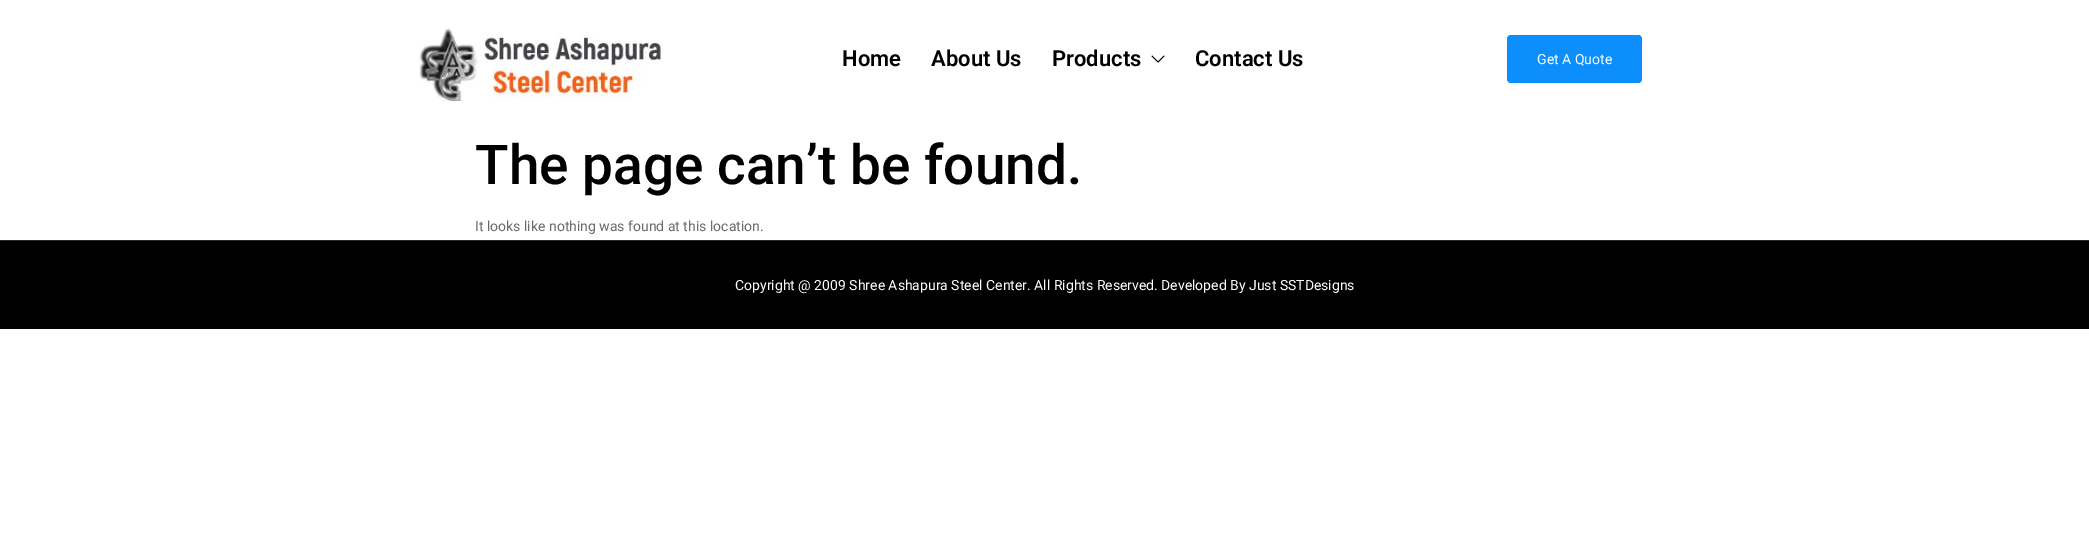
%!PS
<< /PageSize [2089 534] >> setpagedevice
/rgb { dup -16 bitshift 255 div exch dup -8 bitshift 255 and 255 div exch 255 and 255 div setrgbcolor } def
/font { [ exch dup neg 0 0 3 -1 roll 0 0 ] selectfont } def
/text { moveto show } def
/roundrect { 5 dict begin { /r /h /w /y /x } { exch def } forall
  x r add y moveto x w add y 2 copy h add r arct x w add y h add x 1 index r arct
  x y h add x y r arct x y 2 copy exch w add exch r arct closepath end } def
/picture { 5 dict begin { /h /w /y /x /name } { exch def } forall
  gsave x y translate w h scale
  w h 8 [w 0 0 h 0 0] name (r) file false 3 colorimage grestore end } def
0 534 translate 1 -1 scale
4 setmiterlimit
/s1 { /Roboto-SemiBold 22 font 16#000000 rgb } def
/s2 { /Roboto-Regular 14 font 16#FFFFFF rgb } def
/s3 { /Roboto-Medium 55 font 16#000000 rgb } def
/s4 { /Roboto-Regular 14 font 16#6A6A6A rgb } def
16#FFFFFF rgb
0 0 2089 534 rectfill
(pic1.raw) 419 28 244 74 picture
s1
(Home) 842 66 text
(About Us) 931 66 text
(Products) 1052 66 text
(pic2.raw) 1151 55 14 8 picture
(Contact Us) 1195 66 text
16#0C8FFD rgb
1507 35 135 48 4 roundrect fill
s2
(Get A Quote) 1537 64 text
s3
(The page can’t be found.) 475 184 text
s4
(It looks like nothing was found at this location.) 475 231 text
16#000000 rgb
0 241 2089 88 rectfill
16#262626 rgb
0 240 2089 1 rectfill
s2
(Copyright @ 2009 Shree Ashapura Steel Center. All Rights Reserved. Developed By Just SSTDesigns) 735 290 text
showpage
